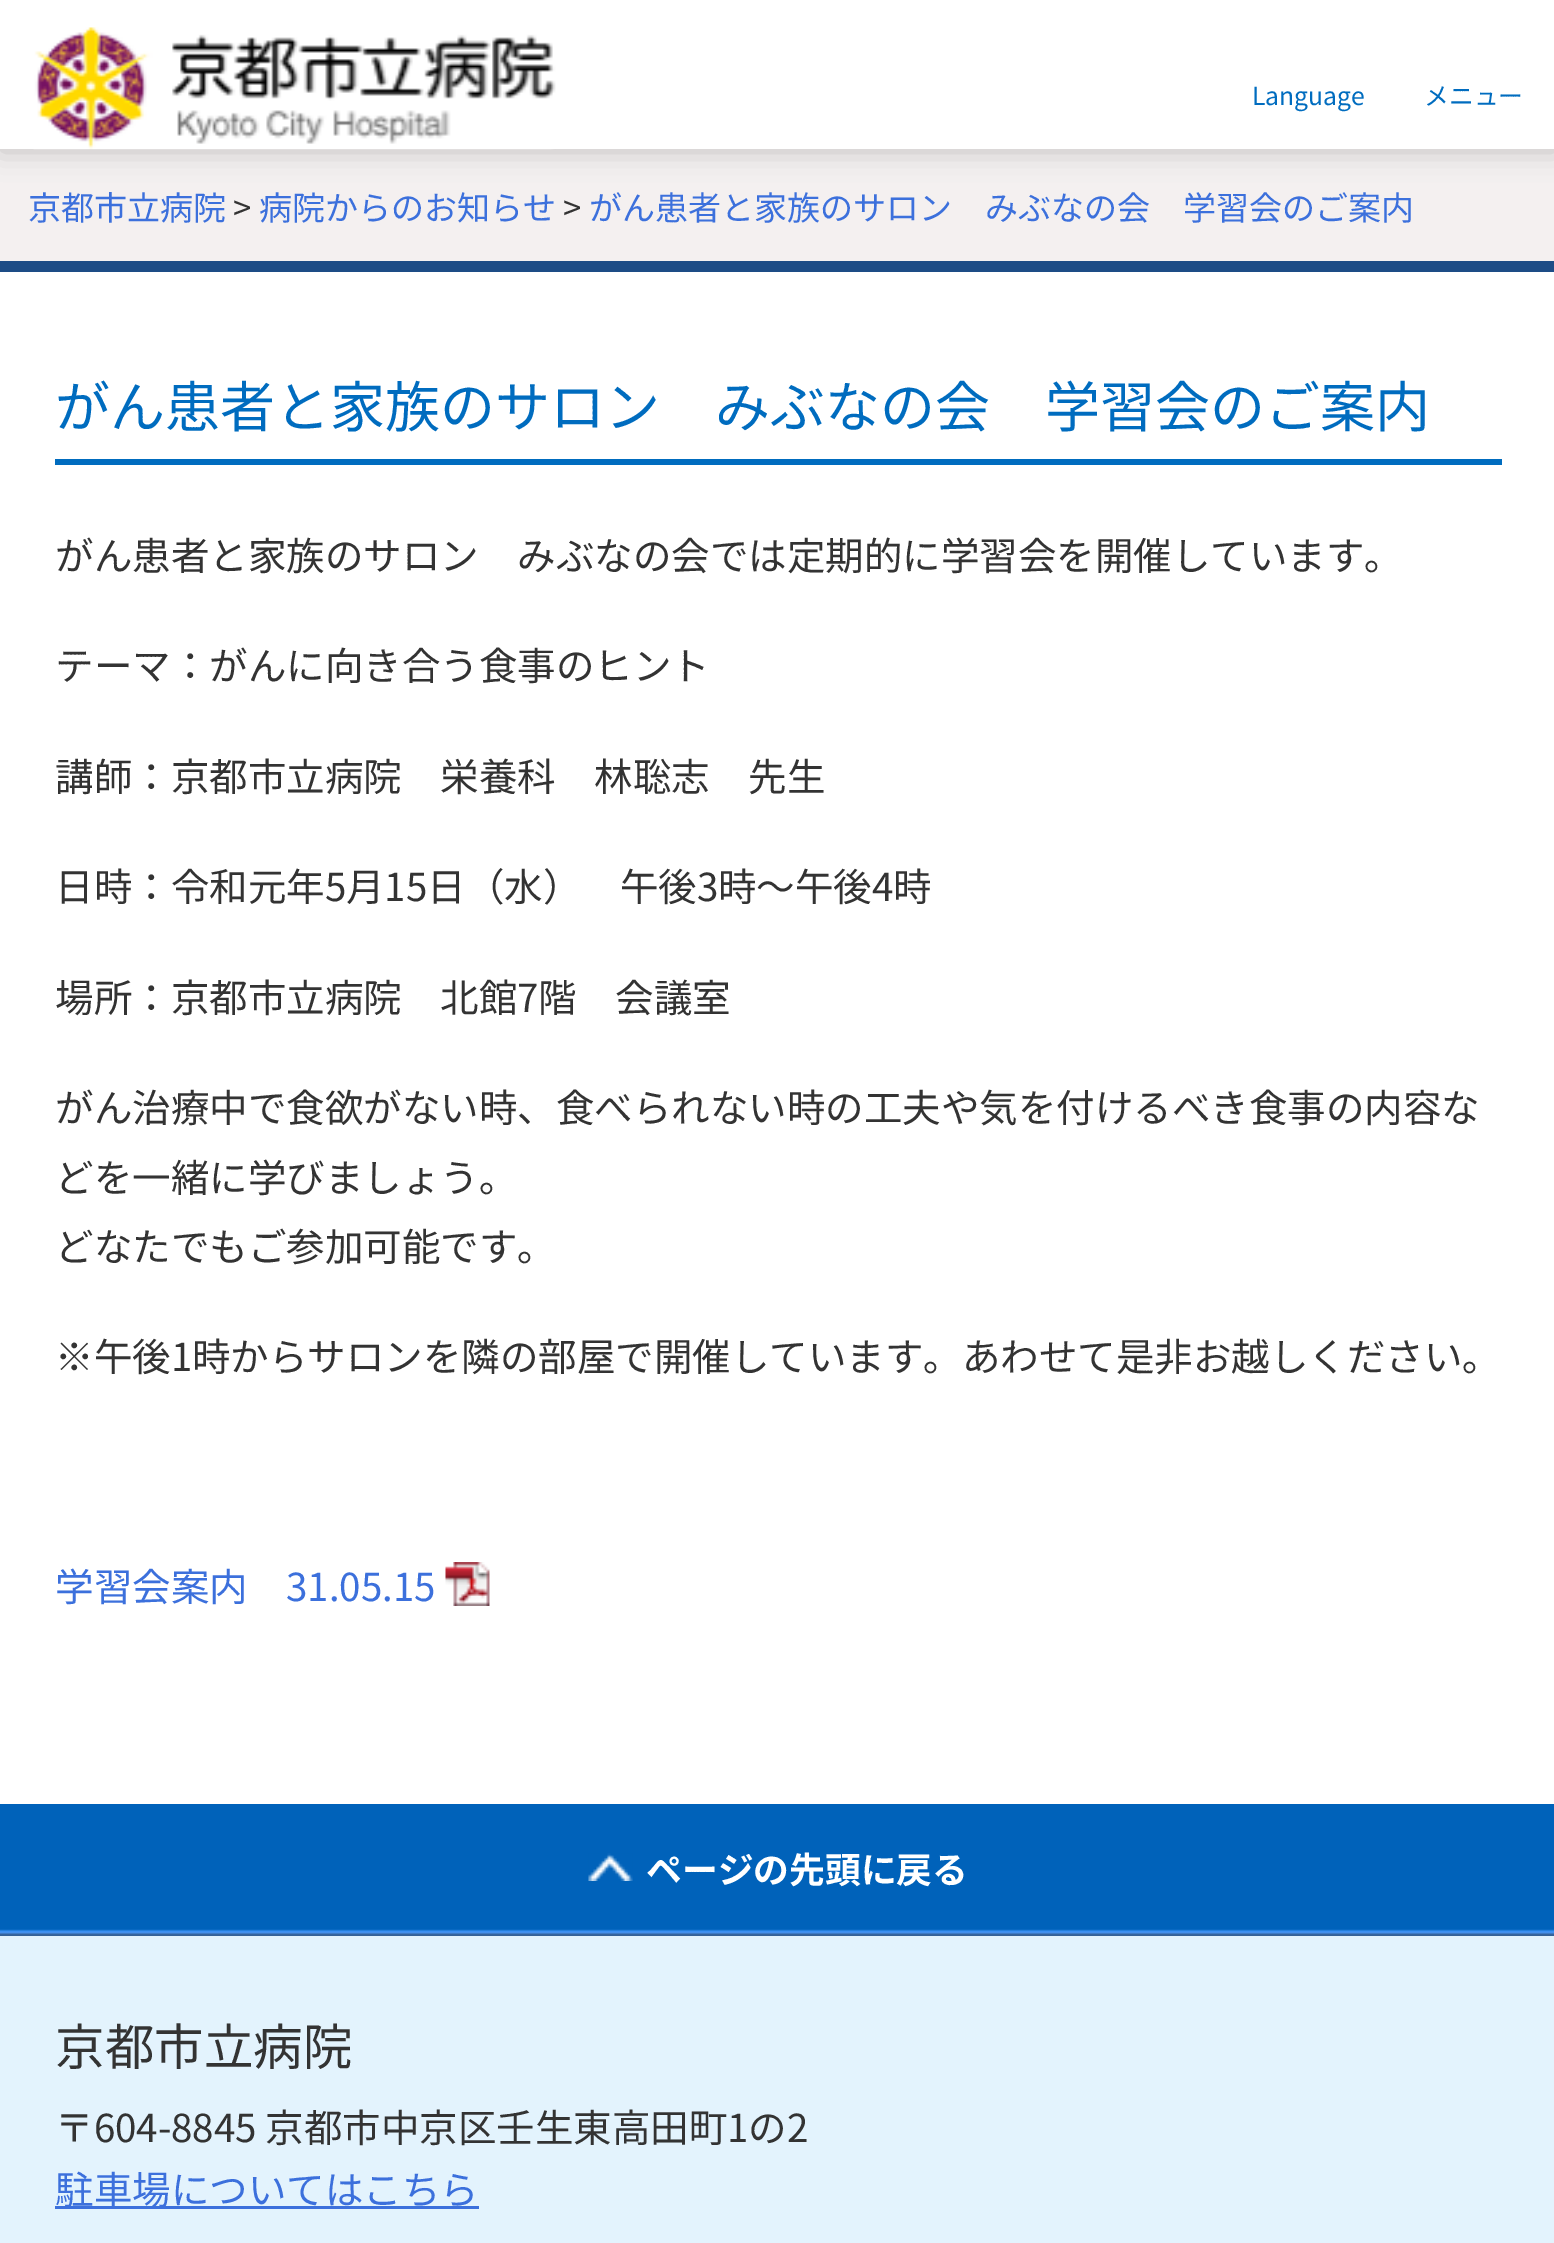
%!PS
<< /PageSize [1554 2243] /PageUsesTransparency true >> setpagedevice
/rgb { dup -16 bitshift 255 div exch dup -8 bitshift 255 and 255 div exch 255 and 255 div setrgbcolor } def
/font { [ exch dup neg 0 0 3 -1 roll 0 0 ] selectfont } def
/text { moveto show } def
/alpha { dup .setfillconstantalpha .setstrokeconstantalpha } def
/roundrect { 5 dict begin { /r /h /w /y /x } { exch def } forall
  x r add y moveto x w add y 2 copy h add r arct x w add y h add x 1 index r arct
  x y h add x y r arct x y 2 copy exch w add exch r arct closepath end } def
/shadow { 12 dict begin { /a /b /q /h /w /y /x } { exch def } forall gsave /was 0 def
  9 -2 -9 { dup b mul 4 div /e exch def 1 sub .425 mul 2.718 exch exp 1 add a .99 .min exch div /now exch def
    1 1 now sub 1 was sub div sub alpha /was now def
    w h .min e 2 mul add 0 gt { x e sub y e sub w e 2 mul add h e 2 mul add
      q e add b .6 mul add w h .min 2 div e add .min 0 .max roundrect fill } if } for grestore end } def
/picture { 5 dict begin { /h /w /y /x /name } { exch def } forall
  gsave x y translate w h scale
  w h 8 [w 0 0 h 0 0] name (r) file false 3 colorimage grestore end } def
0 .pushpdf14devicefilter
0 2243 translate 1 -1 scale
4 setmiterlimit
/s1 { /NotoSansJP-Regular 24.75 font 16#006CBF rgb } def
/s2 { /NotoSansJP-Regular 33 font 16#3C70DC rgb } def
/s3 { /NotoSansJP-Regular 33 font 16#333333 rgb } def
/s4 { /NotoSansJP-Regular 55 font 16#006CBF rgb } def
/s5 { /NotoSansJP-Regular 38.5 font 16#333333 rgb } def
/s6 { /NotoSansJP-Regular 38.5 font 16#3C70DC rgb } def
/s7 { /NotoSansJP-Bold 35.75 font 16#FFFFFF rgb } def
/s8 { /NotoSansJP-Regular 49.5 font 16#333333 rgb } def
16#FFFFFF rgb
0 0 1554 2243 rectfill
16#F4F0F0 rgb
0 149 1554 112 rectfill
16#333333 rgb
0 3 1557 148 0 14 0.25 shadow
16#FFFFFF rgb
0 0 1554 149 rectfill
(pic1.raw) 33 27 523 123 picture
s1
(Language) 1252 105 text
(メニュー) 1424 105 text
s2
(京都市立病院) 28 220 text
s3
(>) 233 220 text
s2
(病院からのお知らせ) 259 220 text
s3
(>) 563 220 text
s2
(がん患者と家族のサロン　みぶなの会　学習会のご案内) 589 220 text
16#1D4C86 rgb
0 261 1554 11 rectfill
16#006CBF rgb
55 459 1447 6 rectfill
s4
(がん患者と家族のサロン　みぶなの会　学習会のご案内) 55 427 text
s5
(がん患者と家族のサロン　みぶなの会では定期的に学習会を開催しています。) 55 570 text
(テーマ：がんに向き合う食事のヒント) 55 680 text
(講師：京都市立病院　栄養科　林聡志　先生) 55 791 text
(日時：令和元年5月15日（水）　午後3時～午後4時) 55 901 text
(場所：京都市立病院　北館7階　会議室) 55 1012 text
(がん治療中で食欲がない時、食べられない時の工夫や気を付けるべき食事の内容な) 55 1122 text
(どを一緒に学びましょう。) 55 1192 text
(どなたでもご参加可能です。) 55 1261 text
(※午後1時からサロンを隣の部屋で開催しています。あわせて是非お越しください。) 55 1371 text
s6
(学習会案内　31.05.15) 55 1601 text
(pic2.raw) 445 1562 45 44 picture
(pic3.raw) 0 1804 1554 132 picture
(pic4.raw) 588 1853 45 28 picture
s7
(ページの先頭に戻る) 646 1883 text
16#E3F3FD rgb
0 1936 1554 307 rectfill
s8
(京都市立病院) 55 2065 text
s5
(〒604-8845 京都市中京区壬生東高田町1の2) 55 2142 text
16#3C70DC rgb
55 2206 424 3 rectfill
(駐車場についてはこちら) 55 2204 text
.poppdf14devicefilter showpage
